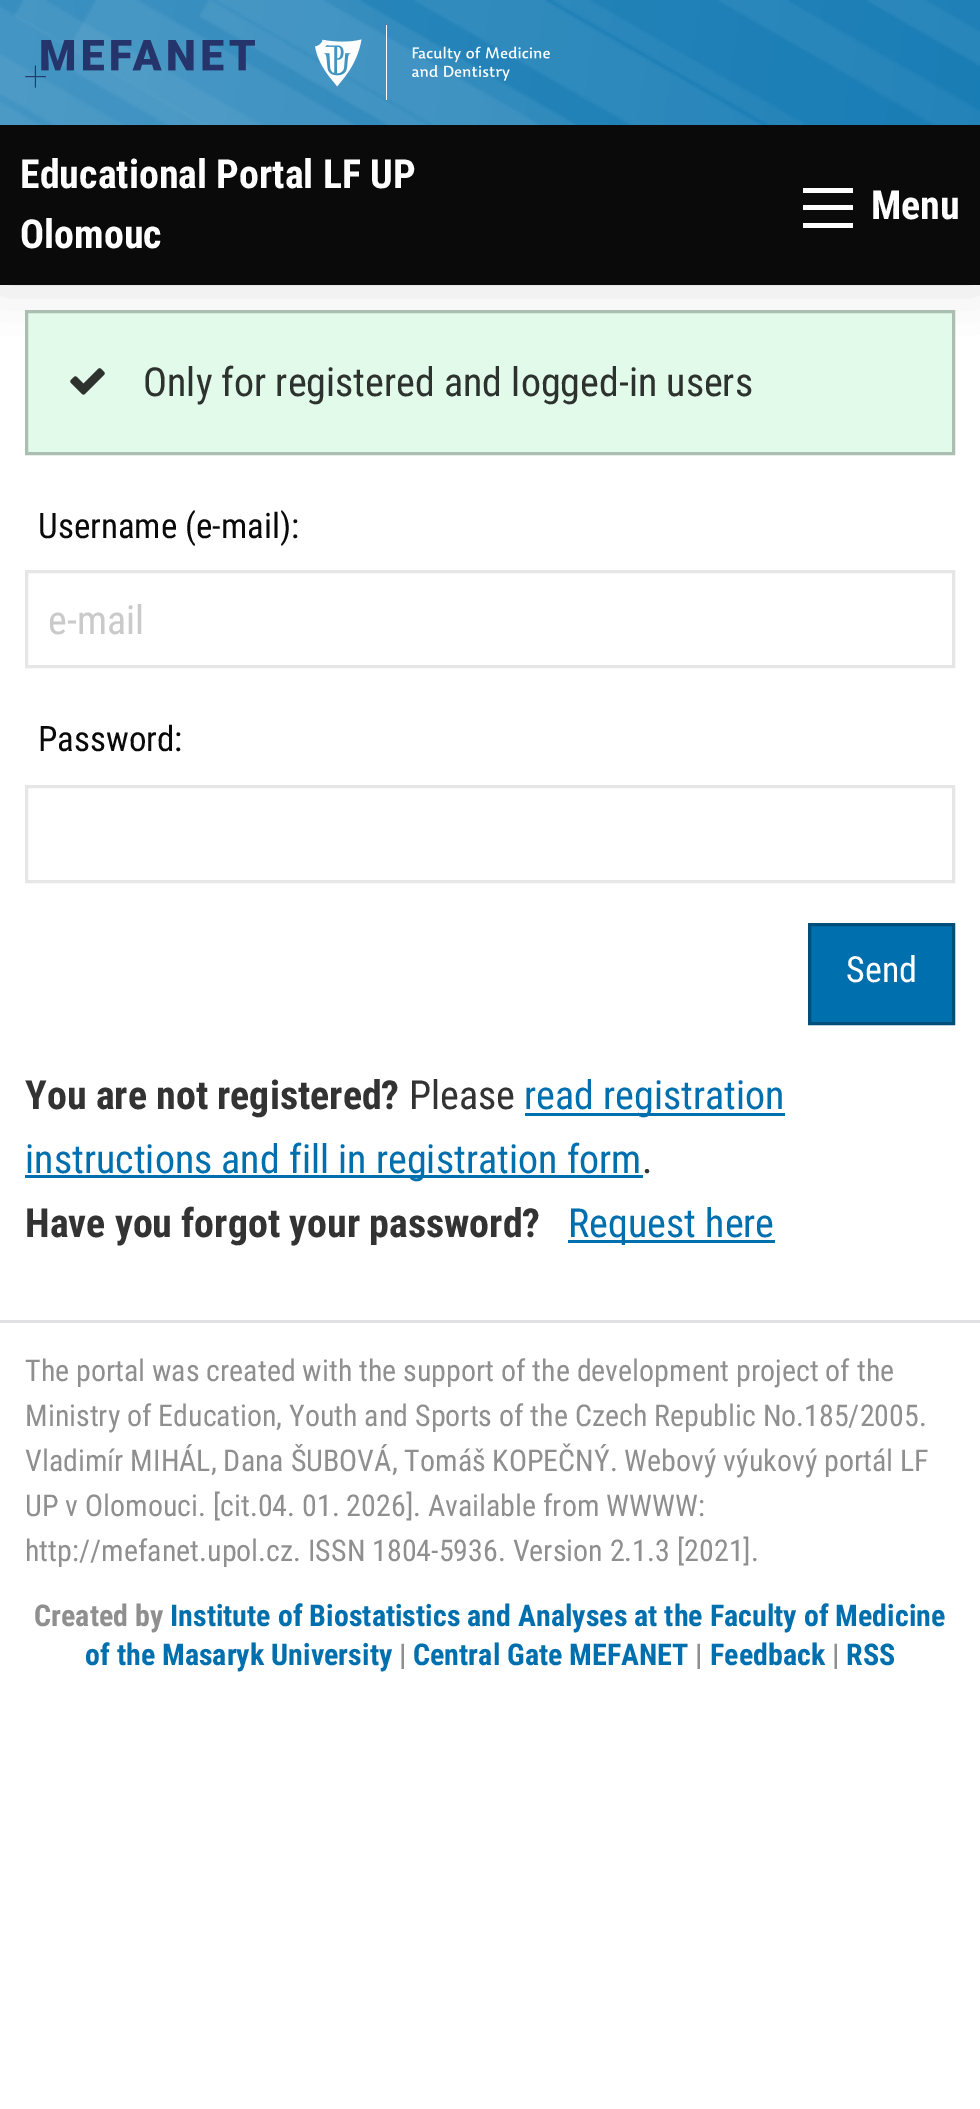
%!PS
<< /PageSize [980 2109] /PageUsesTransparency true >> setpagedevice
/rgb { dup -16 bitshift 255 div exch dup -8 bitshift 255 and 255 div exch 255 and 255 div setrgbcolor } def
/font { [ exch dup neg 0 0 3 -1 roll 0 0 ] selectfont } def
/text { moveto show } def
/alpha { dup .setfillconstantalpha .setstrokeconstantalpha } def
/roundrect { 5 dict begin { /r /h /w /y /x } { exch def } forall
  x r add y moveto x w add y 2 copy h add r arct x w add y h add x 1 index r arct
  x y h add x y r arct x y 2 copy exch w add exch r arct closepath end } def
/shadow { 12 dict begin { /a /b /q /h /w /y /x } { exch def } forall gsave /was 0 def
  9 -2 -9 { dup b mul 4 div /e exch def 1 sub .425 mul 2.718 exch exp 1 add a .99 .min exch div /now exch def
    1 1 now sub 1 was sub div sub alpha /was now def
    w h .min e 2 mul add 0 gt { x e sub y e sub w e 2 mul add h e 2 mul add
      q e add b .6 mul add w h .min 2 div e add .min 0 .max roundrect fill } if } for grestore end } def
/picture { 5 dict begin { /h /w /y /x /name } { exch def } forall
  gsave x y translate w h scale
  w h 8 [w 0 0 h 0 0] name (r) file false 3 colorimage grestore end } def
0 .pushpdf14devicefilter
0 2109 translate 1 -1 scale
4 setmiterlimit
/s1 { /RobotoCondensed-Bold 40 font 16#FEFEFE rgb } def
/s2 { /RobotoCondensed-Regular 40 font 16#2D322F rgb } def
/s3 { /RobotoCondensed-Regular 35 font 16#0A0A0A rgb } def
/s4 { /RobotoCondensed-Regular 40 font 16#CACACA rgb } def
/s5 { /RobotoCondensed-Regular 36 font 16#FEFEFE rgb } def
/s6 { /RobotoCondensed-Bold 40 font 16#333333 rgb } def
/s7 { /RobotoCondensed-Regular 40 font 16#333333 rgb } def
/s8 { /RobotoCondensed-Regular 40 font 16#006FAD rgb } def
/s9 { /RobotoCondensed-Regular 30 font 16#8F8F8F rgb } def
/s10 { /RobotoCondensed-Bold 30 font 16#8F8F8F rgb } def
/s11 { /RobotoCondensed-Bold 30 font 16#006FAD rgb } def
16#FFFFFF rgb
0 0 980 2109 rectfill
16#373535 rgb
0 -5 980 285 0 25 0.2 shadow
16#006FAD rgb
0 0 980 125 rectfill
(pic1.raw) 0 0 980 125 picture
(pic2.raw) 25 40 230 48 picture
(pic3.raw) 315 25 235 75 picture
16#0A0A0A rgb
0 125 980 160 rectfill
s1
(Educational Portal LF UP) 20 188 text
(Olomouc) 20 248 text
803 223 50 5 rectfill
803 205 50 5 rectfill
803 188 50 5 rectfill
(Menu) 871 219 text
16#E1FAEA rgb
26.5 311.5 moveto 953.5 311.5 lineto 953.5 453.5 lineto 26.5 453.5 lineto closepath gsave fill grestore
16#ABBEB2 rgb
3 setlinewidth
stroke
(pic4.raw) 70 368 35 27 picture
s2
(Only for registered and logged-in users) 143 396 text
s3
(Username \(e-mail\):) 38 538 text
16#E6E6E6 rgb
26.5 571.5 927 95 rectstroke
s4
(e-mail) 48 634 text
s3
(Password:) 38 751 text
16#E6E6E6 rgb
26.5 786.5 927 95 rectstroke
16#006FAD rgb
809.5 924.5 moveto 953.5 924.5 lineto 953.5 1023.5 lineto 809.5 1023.5 lineto closepath gsave fill grestore
16#004E7A rgb
stroke
s5
(Send) 846 982 text
s6
(You are not registered?) 25 1109 text
s7
(Please) 409 1109 text
16#006FAD rgb
525 1113 260 3 rectfill
(read registration) 524 1109 text
25 1175 618 3 rectfill
(instructions and fill in registration form) 25 1173 text
s7
(.) 642 1173 text
s6
(Have you forgot your password?) 25 1237 text
16#006FAD rgb
568 1240 207 3 rectfill
s8
(Request here) 568 1237 text
16#E1E1E5 rgb
0 1320 980 3 rectfill
s9
(The portal was created with the support of the development project of the) 25 1381 text
(Ministry of Education, Youth and Sports of the Czech Republic No.185/2005.) 25 1426 text
(Vladimír MIHÁL, Dana ŠUBOVÁ, Tomáš KOPEČNÝ. Webový výukový portál LF) 25 1471 text
(UP v Olomouci. [cit.04. 01. 2026]. Available from WWWW:) 25 1516 text
(http://mefanet.upol.cz. ISSN 1804-5936. Version 2.1.3 [2021].) 25 1561 text
s10
(Created by) 34 1626 text
s11
(Institute of Biostatistics and Analyses at the Faculty of Medicine) 170 1626 text
(of the Masaryk University) 85 1665 text
s10
(|) 399 1665 text
s11
(Central Gate MEFANET) 413 1665 text
s10
(|) 695 1665 text
s11
(Feedback) 710 1665 text
s10
(|) 832 1665 text
s11
(RSS) 846 1665 text
.poppdf14devicefilter showpage
